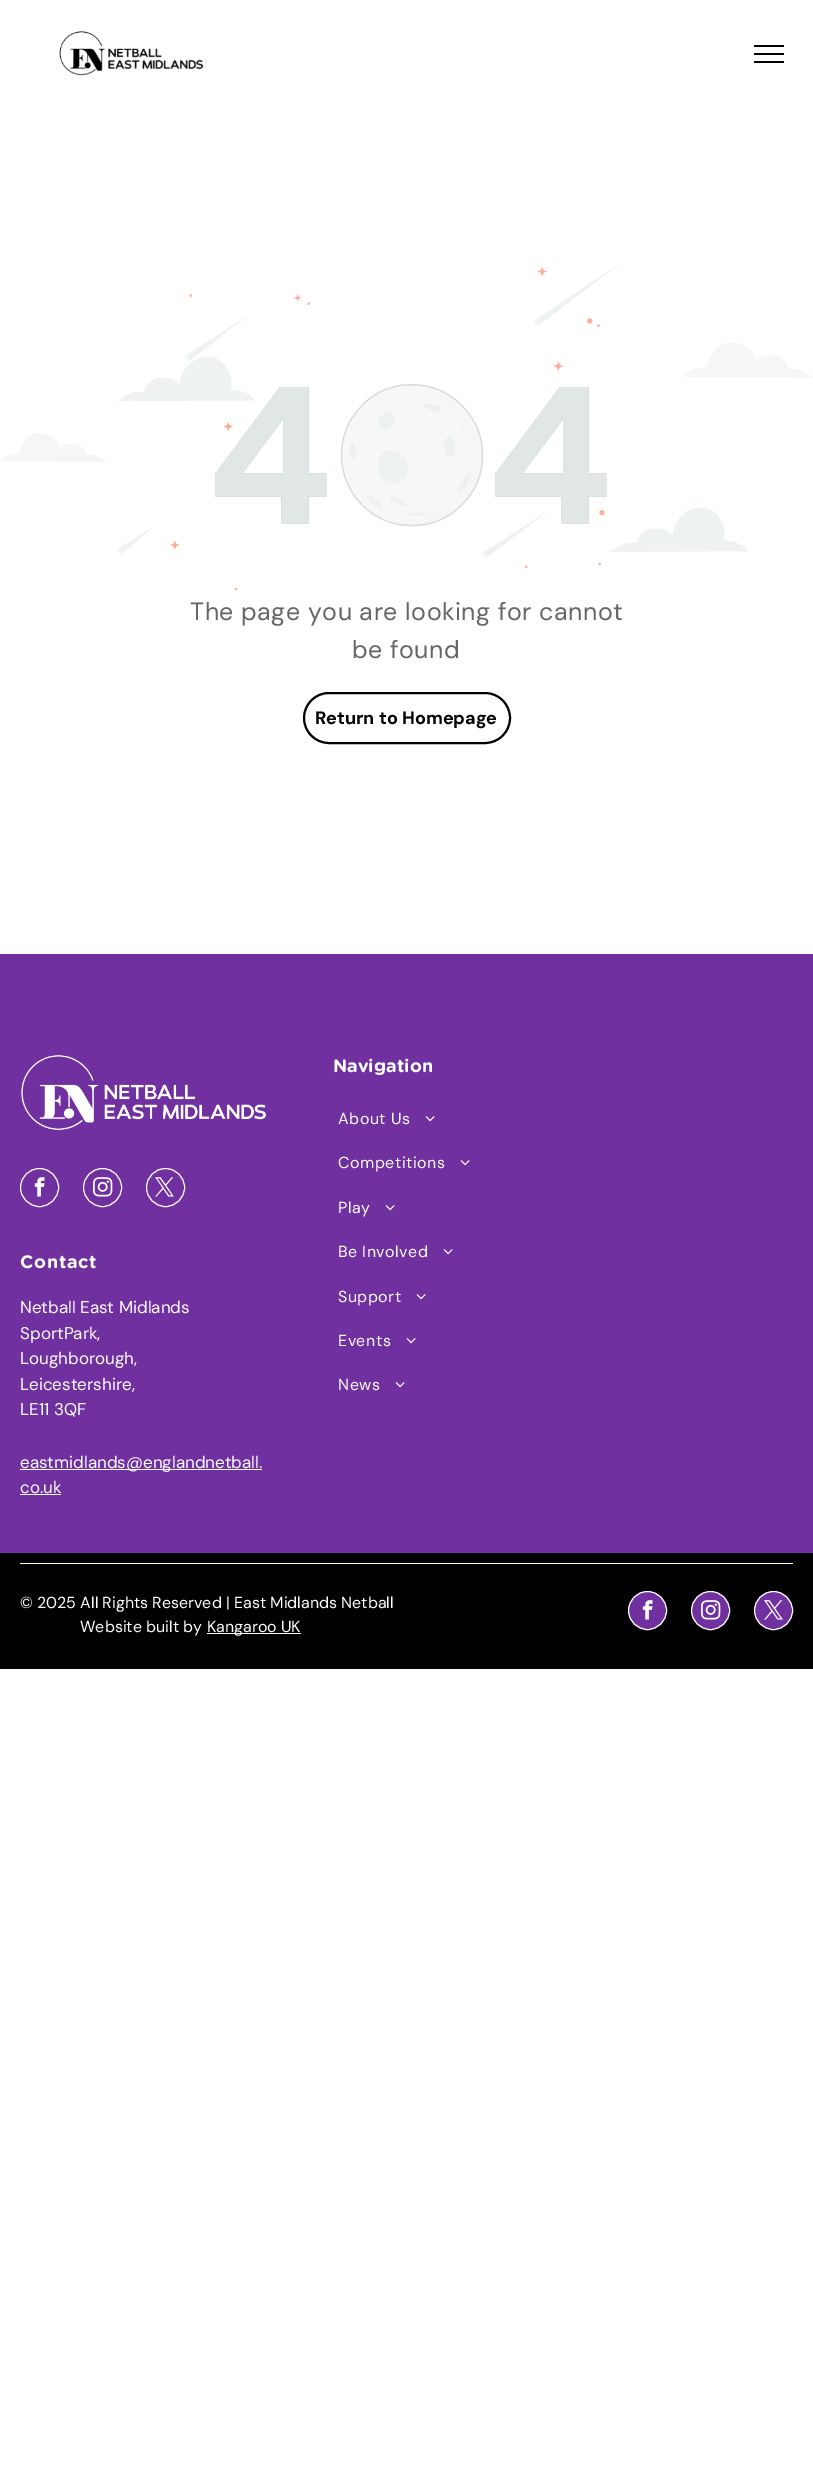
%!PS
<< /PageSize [813 2487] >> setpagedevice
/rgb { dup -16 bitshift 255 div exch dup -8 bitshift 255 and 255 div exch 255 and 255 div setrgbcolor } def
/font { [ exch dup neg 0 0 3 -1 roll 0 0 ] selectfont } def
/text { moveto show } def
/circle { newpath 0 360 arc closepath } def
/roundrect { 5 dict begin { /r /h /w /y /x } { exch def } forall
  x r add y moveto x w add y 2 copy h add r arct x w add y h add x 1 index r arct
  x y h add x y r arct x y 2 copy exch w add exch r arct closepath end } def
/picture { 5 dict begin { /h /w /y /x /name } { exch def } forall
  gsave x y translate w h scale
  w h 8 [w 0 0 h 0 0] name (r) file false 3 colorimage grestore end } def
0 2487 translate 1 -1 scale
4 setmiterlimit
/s1 { /DMSans-Bold 18 font 16#010000 rgb } def
/s2 { /DMSans-Regular 17 font 16#FFFFFF rgb } def
/s3 { /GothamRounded-Bold 18 font 16#FFFFFF rgb } def
/s4 { /DMSans-Regular 16 font 16#FFFFFF rgb } def
16#FFFFFF rgb
0 0 813 2487 rectfill
(pic1.raw) 59 31 145 45 picture
16#000000 rgb
754 45 30 2 rectfill
754 53 30 2 rectfill
754 61 30 2 rectfill
(pic2.raw) 0 261 813 330 picture
/DMSans-Regular 25 font
16#666666 rgb
190 620 moveto 0.5 0 (The page you are looking for cannot) ashow
352 658 moveto 0.5 0 (be found) ashow
16#000000 rgb
2 setlinewidth
304 693 206 50 25 roundrect stroke
s1
(Return to Homepage) 315 724 text
16#7030A0 rgb
0 954 813 599 rectfill
(pic3.raw) 21 1055 245 75 picture
16#FFFFFF rgb
1 setlinewidth
39.5 1187.5 19 circle stroke
(pic4.raw) 34 1177 11 20 picture
102.5 1187.5 19 circle stroke
(pic5.raw) 93 1177 20 20 picture
165.5 1187.5 19 circle stroke
(pic6.raw) 155 1177 19 20 picture
/GothamRounded-Bold 18 font
20 1268 moveto 0.75 0 (Contact) ashow
s2
(Netball East Midlands) 20 1313 text
(SportPark,) 20 1339 text
(Loughborough,) 20 1364 text
(Leicestershire,) 20 1390 text
(LE11 3QF) 20 1415 text
20 1469 242 1 rectfill
(eastmidlands@englandnetball.) 20 1468 text
(co.uk) 20 1493 text
20 1494 41 1 rectfill
s3
(Navigation) 333 1072 text
/DMSans-Regular 16 font
338 1124 moveto 0.5 0 (About Us) ashow
(pic7.raw) 425 1116 10 6 picture
338 1168 moveto 0.5 0 (Competitions) ashow
(pic7.raw) 460 1160 10 6 picture
338 1213 moveto 0.5 0 (Play) ashow
(pic7.raw) 385 1205 10 6 picture
338 1257 moveto 0.5 0 (Be Involved) ashow
(pic7.raw) 443 1249 10 6 picture
338 1302 moveto 0.5 0 (Support) ashow
(pic7.raw) 416 1294 10 6 picture
338 1346 moveto 0.5 0 (Events) ashow
(pic7.raw) 406 1338 10 6 picture
338 1390 moveto 0.5 0 (News) ashow
(pic7.raw) 395 1382 10 6 picture
16#000000 rgb
0 1553 813 116 rectfill
16#FFFFFF rgb
20 1563 773 1 rectfill
(© 2025 All Rights Reserved | East Midlands Netball) 20 1608 text
(Website built by) 80 1632 text
207 1633 94 1 rectfill
(Kangaroo UK) 207 1632 text
16#7030A0 rgb
647.5 1610.5 19 circle gsave fill grestore
16#FFFFFF rgb
stroke
(pic4.raw) 642 1600 11 20 picture
16#7030A0 rgb
710.5 1610.5 19 circle gsave fill grestore
16#FFFFFF rgb
stroke
(pic5.raw) 701 1600 20 20 picture
16#7030A0 rgb
773.5 1610.5 19 circle gsave fill grestore
16#FFFFFF rgb
stroke
(pic6.raw) 764 1600 19 20 picture
showpage
